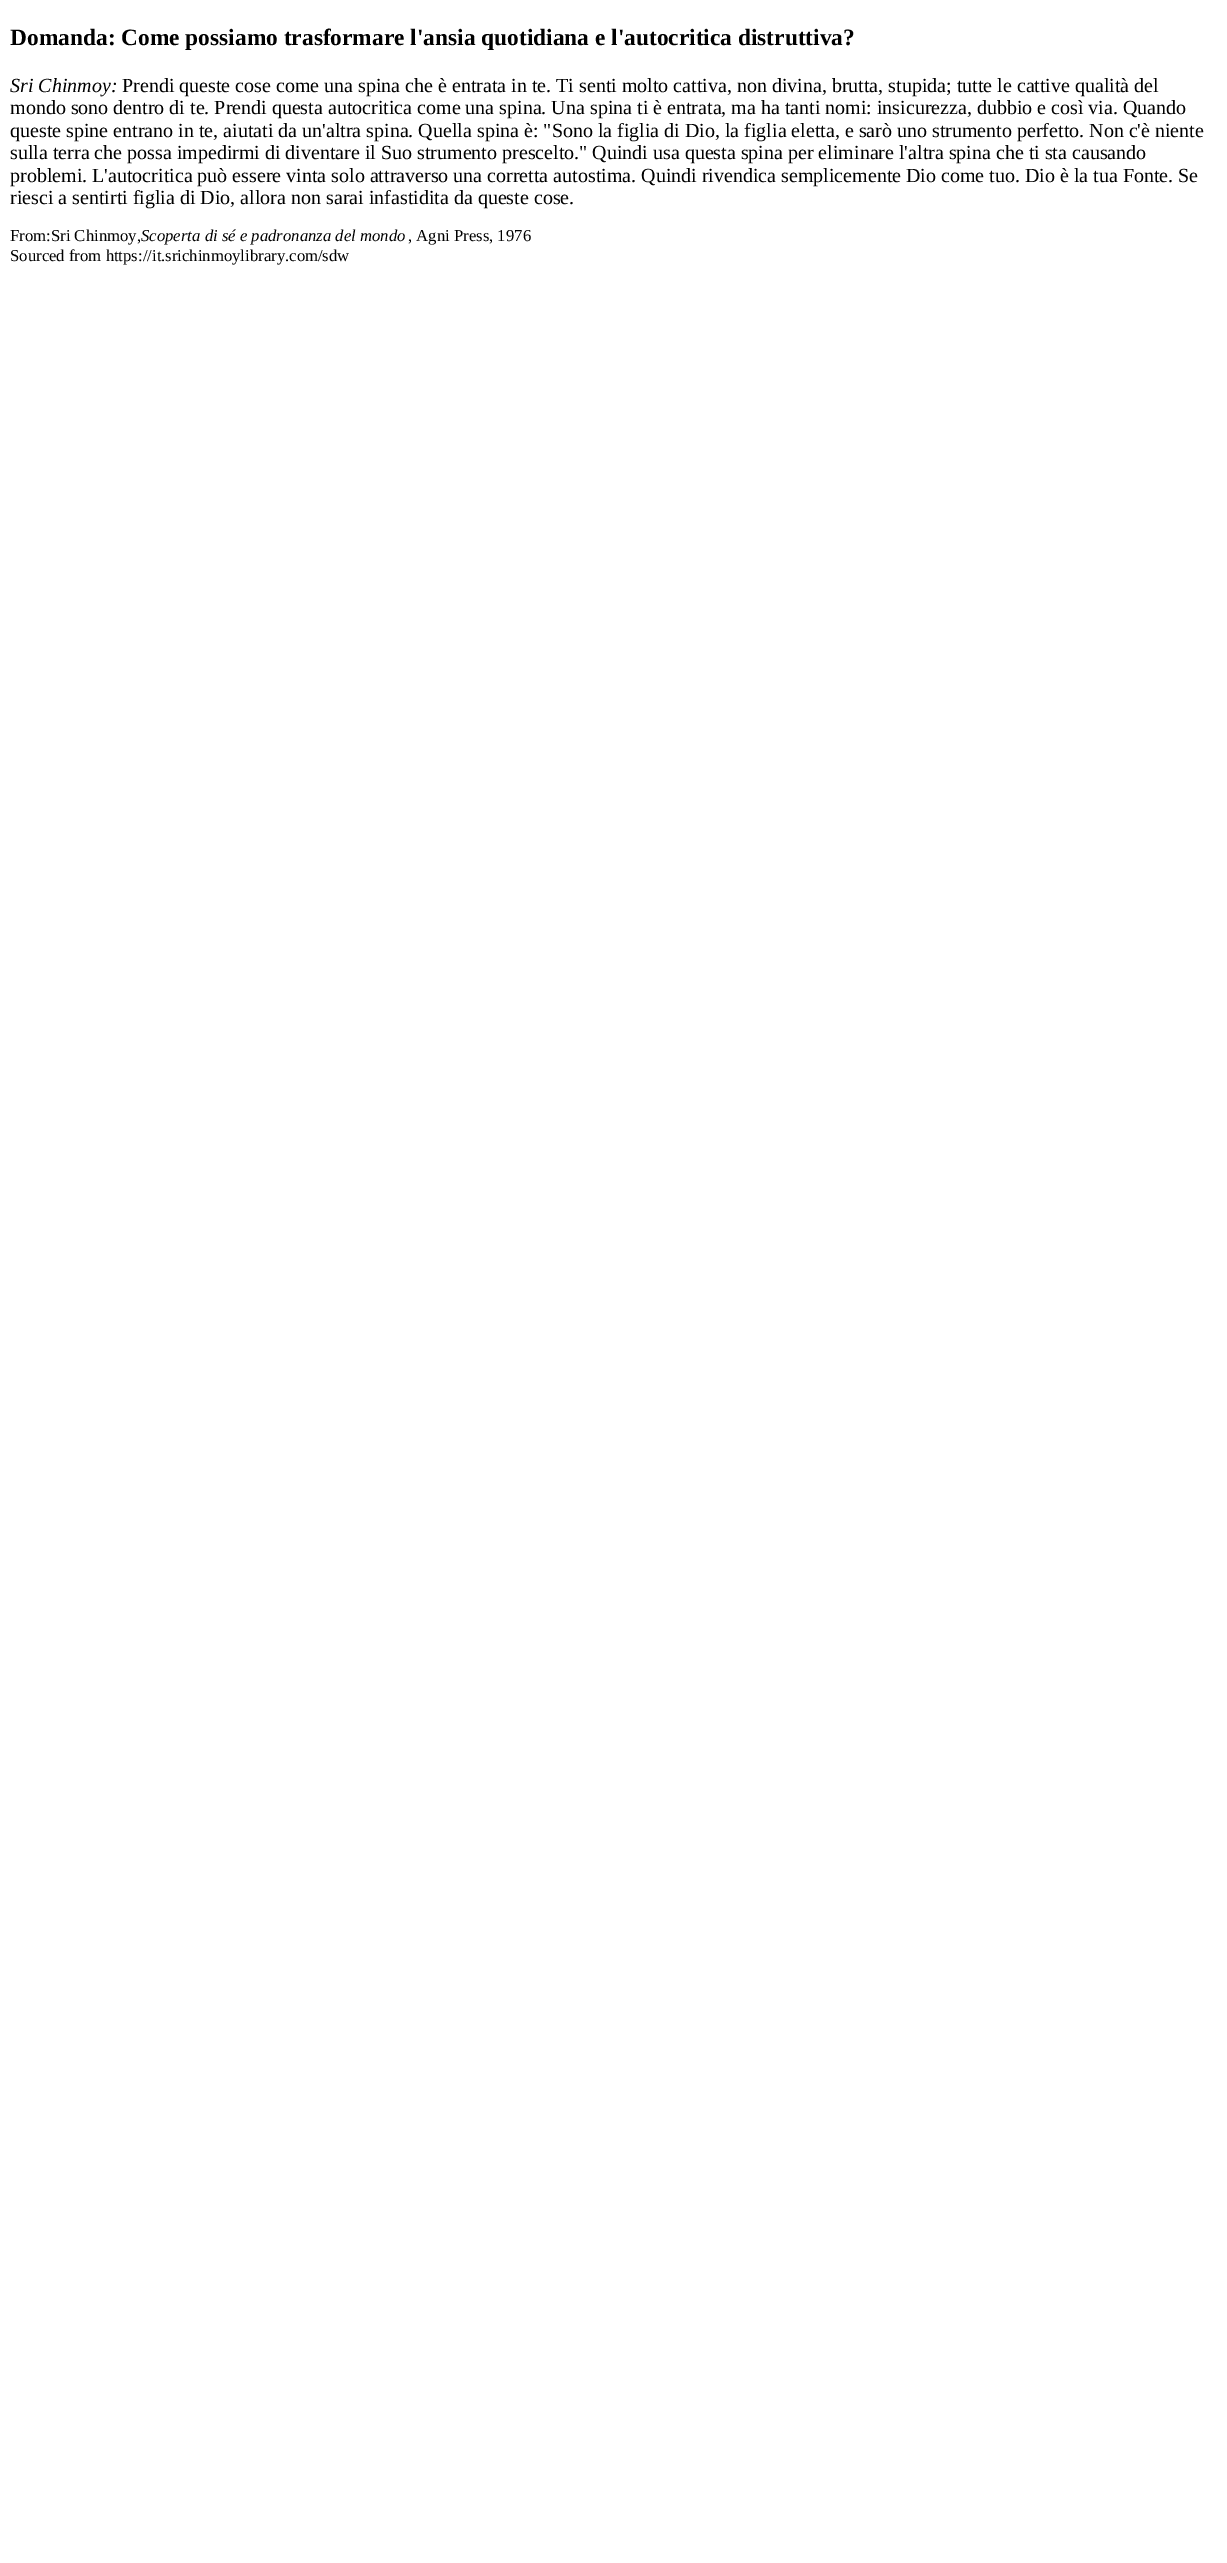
%!PS
<< /PageSize [1227 2563] >> setpagedevice
/rgb { dup -16 bitshift 255 div exch dup -8 bitshift 255 and 255 div exch 255 and 255 div setrgbcolor } def
/font { [ exch dup neg 0 0 3 -1 roll 0 0 ] selectfont } def
/text { moveto show } def
0 2563 translate 1 -1 scale
4 setmiterlimit
/s1 { /LiberationSerif-Bold 23.4 font 16#000000 rgb } def
/s2 { /LiberationSerif-Italic 20 font 16#000000 rgb } def
/s3 { /LiberationSerif-Regular 20 font 16#000000 rgb } def
/s4 { /LiberationSerif-Regular 16.7 font 16#000000 rgb } def
/s5 { /LiberationSerif-Italic 16.7 font 16#000000 rgb } def
16#FFFFFF rgb
0 0 1227 2563 rectfill
s1
(Domanda: Come possiamo trasformare l'ansia quotidiana e l'autocritica distruttiva?) 10 45 text
s2
(Sri Chinmoy:) 10 92 text
s3
(Prendi queste cose come una spina che è entrata in te. Ti senti molto cattiva, non divina, brutta, stupida; tutte le cattive qualità del) 122 92 text
(mondo sono dentro di te. Prendi questa autocritica come una spina. Una spina ti è entrata, ma ha tanti nomi: insicurezza, dubbio e così via. Quando) 10 114 text
(queste spine entrano in te, aiutati da un'altra spina. Quella spina è: "Sono la figlia di Dio, la figlia eletta, e sarò uno strumento perfetto. Non c'è niente) 10 137 text
(sulla terra che possa impedirmi di diventare il Suo strumento prescelto." Quindi usa questa spina per eliminare l'altra spina che ti sta causando) 10 159 text
(problemi. L'autocritica può essere vinta solo attraverso una corretta autostima. Quindi rivendica semplicemente Dio come tuo. Dio è la tua Fonte. Se) 10 182 text
(riesci a sentirti figlia di Dio, allora non sarai infastidita da queste cose.) 10 204 text
s4
(From:Sri Chinmoy,) 10 241 text
s5
(Scoperta di sé e padronanza del mondo) 141 241 text
s4
(, Agni Press, 1976) 408 241 text
(Sourced from https://it.srichinmoylibrary.com/sdw) 10 261 text
showpage
